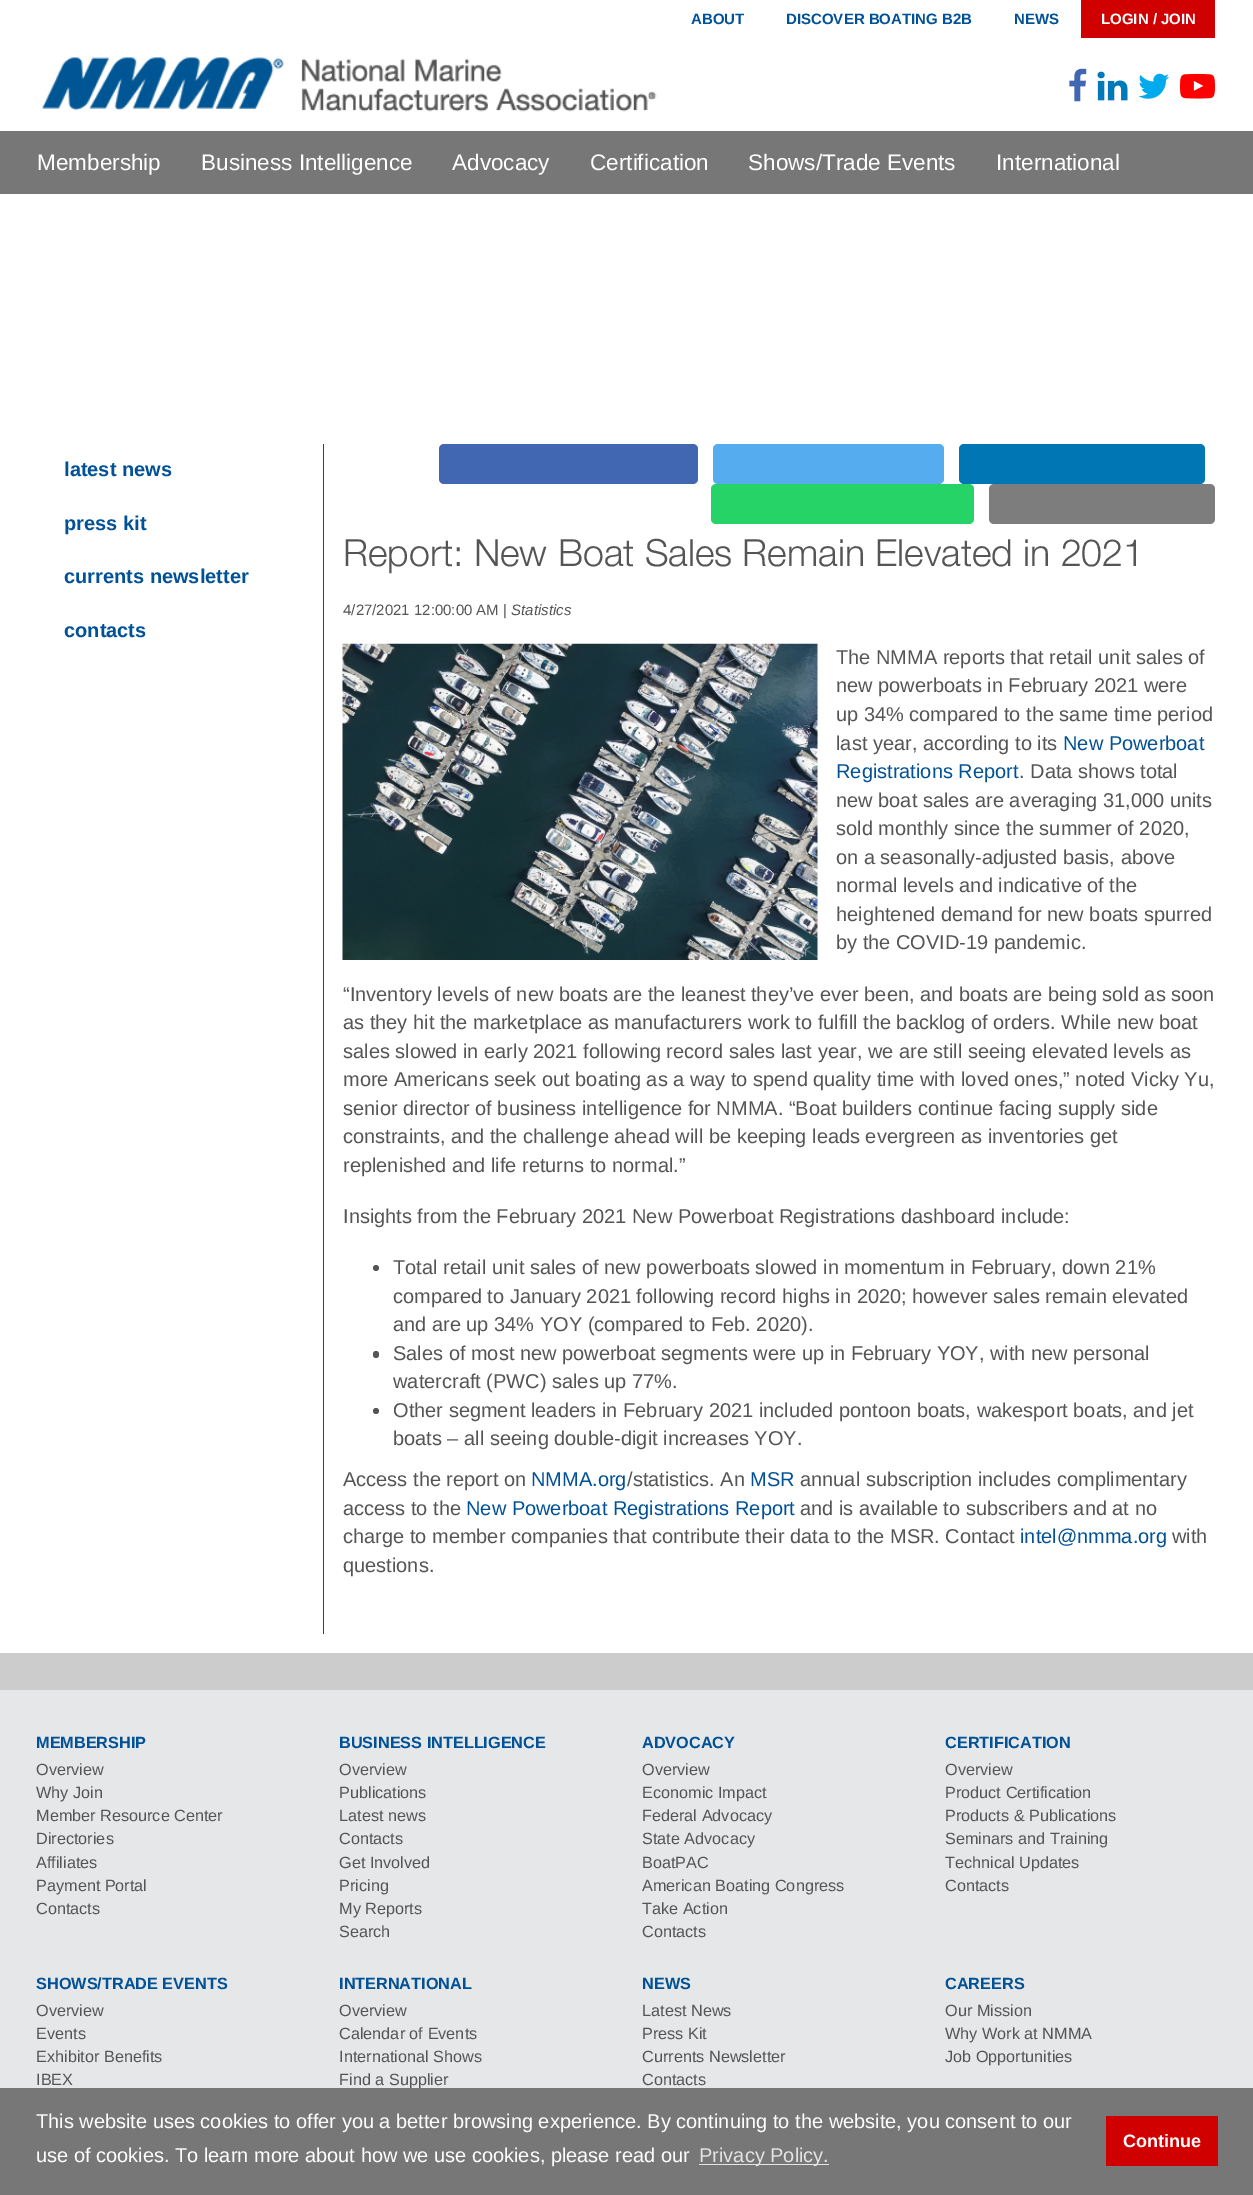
%!PS
<< /PageSize [1253 2195] >> setpagedevice
/rgb { dup -16 bitshift 255 div exch dup -8 bitshift 255 and 255 div exch 255 and 255 div setrgbcolor } def
/font { [ exch dup neg 0 0 3 -1 roll 0 0 ] selectfont } def
/text { moveto show } def
/circle { newpath 0 360 arc closepath } def
/roundrect { 5 dict begin { /r /h /w /y /x } { exch def } forall
  x r add y moveto x w add y 2 copy h add r arct x w add y h add x 1 index r arct
  x y h add x y r arct x y 2 copy exch w add exch r arct closepath end } def
/picture { 5 dict begin { /h /w /y /x /name } { exch def } forall
  gsave x y translate w h scale
  w h 8 [w 0 0 h 0 0] name (r) file false 3 colorimage grestore end } def
0 2195 translate 1 -1 scale
4 setmiterlimit
/s1 { /LiberationSans-Bold 15 font 16#015196 rgb } def
/s2 { /LiberationSans-Bold 15 font 16#FFFFFF rgb } def
/s3 { /LiberationSans-Regular 22.5 font 16#FFFFFF rgb } def
/s4 { /LiberationSans-Bold 20 font 16#015196 rgb } def
/s5 { /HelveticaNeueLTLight-Light 37.5 font 16#555555 rgb } def
/s6 { /LiberationSans-Regular 15 font 16#555555 rgb } def
/s7 { /LiberationSans-Italic 15 font 16#555555 rgb } def
/s8 { /LiberationSans-Regular 20 font 16#555555 rgb } def
/s9 { /LiberationSans-Regular 20 font 16#015196 rgb } def
/s10 { /LiberationSans-Bold 16.25 font 16#015196 rgb } def
/s11 { /LiberationSans-Regular 16.25 font 16#555555 rgb } def
/s12 { /LiberationSans-Regular 20 font 16#FFFFFF rgb } def
/s13 { /LiberationSans-Regular 20 font 16#E4E4E4 rgb } def
/s14 { /LiberationSans-Bold 18 font 16#FFFFFF rgb } def
16#FFFFFF rgb
0 0 1253 2195 rectfill
s1
(ABOUT) 691 24 text
(DISCOVER BOATING B2B) 786 24 text
(NEWS) 1014 24 text
16#D00000 rgb
1081 0 134 38 rectfill
s2
(LOGIN / JOIN) 1101 24 text
(pic1.raw) 42 57 615 55 picture
(pic2.raw) 1069 68 18 34 picture
(pic3.raw) 1097 71 31 30 picture
(pic4.raw) 1138 73 31 26 picture
(pic5.raw) 1180 73 35 26 picture
16#777777 rgb
0 131 1253 63 rectfill
s3
(Membership) 37 170 text
(Business Intelligence) 201 170 text
(Advocacy) 452 170 text
(Certification) 590 170 text
(Shows/Trade Events) 748 170 text
(International) 996 170 text
16#D00000 rgb
323 444 1 1190 rectfill
s4
(latest news) 64 476 text
(press kit) 64 530 text
(currents newsletter) 64 583 text
(contacts) 64 637 text
16#4267B2 rgb
439 444 259 40 5 roundrect fill
16#55ACEE rgb
713 444 231 40 5 roundrect fill
16#0077B5 rgb
959 444 246 40 5 roundrect fill
16#25D366 rgb
711 484 263 40 5 roundrect fill
16#7D7D7D rgb
989 484 226 40 5 roundrect fill
s5
(Report: New Boat Sales Remain Elevated in 2021) 343 566 text
s6
(4/27/2021 12:00:00 AM |) 343 615 text
s7
(Statistics) 511 615 text
(pic6.raw) 342 643 476 317 picture
s8
(The NMMA reports that retail unit sales of) 836 664 text
(new powerboats in February 2021 were) 836 692 text
(up 34% compared to the same time period) 836 721 text
(last year, according to its) 836 750 text
s9
(New Powerboat) 1063 750 text
(Registrations Report) 836 778 text
s8
(. Data shows total) 1019 778 text
(new boat sales are averaging 31,000 units) 836 807 text
(sold monthly since the summer of 2020,) 836 835 text
(on a seasonally-adjusted basis, above) 836 864 text
(normal levels and indicative of the) 836 892 text
(heightened demand for new boats spurred) 836 921 text
(by the COVID-19 pandemic.) 836 949 text
(“Inventory levels of new boats are the leanest they’ve ever been, and boats are being sold as soon) 343 1001 text
(as they hit the marketplace as manufacturers work to fulfill the backlog of orders. While new boat) 343 1029 text
(sales slowed in early 2021 following record sales last year, we are still seeing elevated levels as) 343 1058 text
(more Americans seek out boating as a way to spend quality time with loved ones,” noted Vicky Yu,) 343 1086 text
(senior director of business intelligence for NMMA. “Boat builders continue facing supply side) 343 1115 text
(constraints, and the challenge ahead will be keeping leads evergreen as inventories get) 343 1143 text
(replenished and life returns to normal.”) 343 1172 text
(Insights from the February 2021 New Powerboat Registrations dashboard include:) 343 1223 text
376 1268 3 circle fill
(Total retail unit sales of new powerboats slowed in momentum in February, down 21%) 393 1274 text
(compared to January 2021 following record highs in 2020; however sales remain elevated) 393 1303 text
(and are up 34% YOY \(compared to Feb. 2020\).) 393 1331 text
373 1351 6 7 3 roundrect fill
(Sales of most new powerboat segments were up in February YOY, with new personal) 393 1360 text
(watercraft \(PWC\) sales up 77%.) 393 1388 text
376 1411 3 circle fill
(Other segment leaders in February 2021 included pontoon boats, wakesport boats, and jet) 393 1417 text
(boats – all seeing double-digit increases YOY.) 393 1445 text
(Access the report on) 343 1486 text
s9
(NMMA.org) 531 1486 text
s8
(/statistics. An) 627 1486 text
s9
(MSR) 750 1486 text
s8
(annual subscription includes complimentary) 800 1486 text
(access to the) 343 1515 text
s9
(New Powerboat Registrations Report) 466 1515 text
s8
(and is available to subscribers and at no) 800 1515 text
(charge to member companies that contribute their data to the MSR. Contact) 343 1543 text
s9
(intel@nmma.org) 1020 1543 text
s8
(with) 1172 1543 text
(questions.) 343 1572 text
16#CCCCCC rgb
0 1653 1253 37 rectfill
16#E6E7E9 rgb
0 1690 1253 398 rectfill
s10
(MEMBERSHIP) 36 1748 text
s11
(Overview) 36 1775 text
(Why Join) 36 1798 text
(Member Resource Center) 36 1821 text
(Directories) 36 1844 text
(Affiliates) 36 1868 text
(Payment Portal) 36 1891 text
(Contacts) 36 1914 text
s10
(BUSINESS INTELLIGENCE) 339 1748 text
s11
(Overview) 339 1775 text
(Publications) 339 1798 text
(Latest news) 339 1821 text
(Contacts) 339 1844 text
(Get Involved) 339 1868 text
(Pricing) 339 1891 text
(My Reports) 339 1914 text
(Search) 339 1937 text
s10
(ADVOCACY) 642 1748 text
s11
(Overview) 642 1775 text
(Economic Impact) 642 1798 text
(Federal Advocacy) 642 1821 text
(State Advocacy) 642 1844 text
(BoatPAC) 642 1868 text
(American Boating Congress) 642 1891 text
(Take Action) 642 1914 text
(Contacts) 642 1937 text
s10
(CERTIFICATION) 945 1748 text
s11
(Overview) 945 1775 text
(Product Certification) 945 1798 text
(Products & Publications) 945 1821 text
(Seminars and Training) 945 1844 text
(Technical Updates) 945 1868 text
(Contacts) 945 1891 text
s10
(SHOWS/TRADE EVENTS) 36 1989 text
s11
(Overview) 36 2016 text
(Events) 36 2039 text
(Exhibitor Benefits) 36 2062 text
(IBEX) 36 2085 text
s10
(INTERNATIONAL) 339 1989 text
s11
(Overview) 339 2016 text
(Calendar of Events) 339 2039 text
(International Shows) 339 2062 text
(Find a Supplier) 339 2085 text
s10
(NEWS) 642 1989 text
s11
(Latest News) 642 2016 text
(Press Kit) 642 2039 text
(Currents Newsletter) 642 2062 text
(Contacts) 642 2085 text
s10
(CAREERS) 945 1989 text
s11
(Our Mission) 945 2016 text
(Why Work at NMMA) 945 2039 text
(Job Opportunities) 945 2062 text
16#777777 rgb
0 2088 1253 107 rectfill
s12
(This website uses cookies to offer you a better browsing experience. By continuing to the website, you consent to our) 36 2128 text
(use of cookies. To learn more about how we use cookies, please read our) 36 2162 text
16#E4E4E4 rgb
699 2164 130 1 rectfill
(Privacy Policy.) 699 2162 text
16#D00000 rgb
1106 2116 112 50 rectfill
s14
(Continue) 1123 2147 text
showpage
